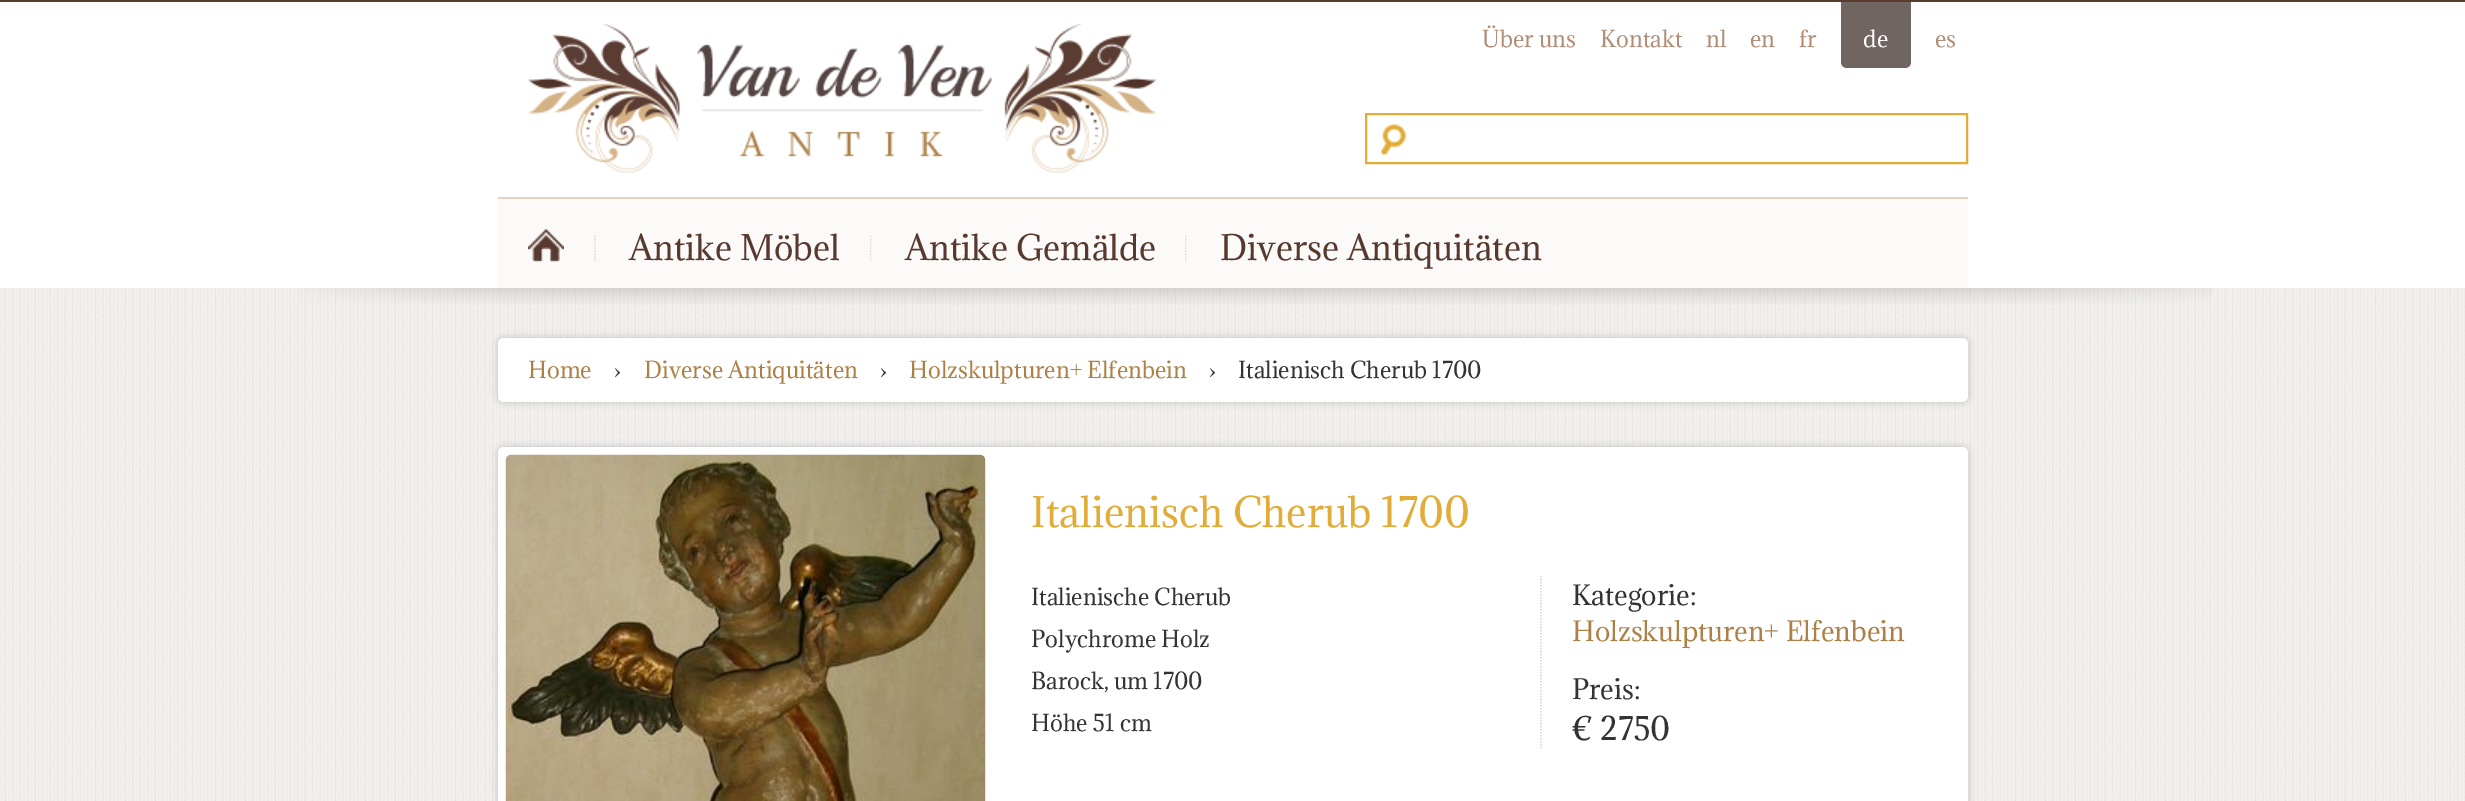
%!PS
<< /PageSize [2465 801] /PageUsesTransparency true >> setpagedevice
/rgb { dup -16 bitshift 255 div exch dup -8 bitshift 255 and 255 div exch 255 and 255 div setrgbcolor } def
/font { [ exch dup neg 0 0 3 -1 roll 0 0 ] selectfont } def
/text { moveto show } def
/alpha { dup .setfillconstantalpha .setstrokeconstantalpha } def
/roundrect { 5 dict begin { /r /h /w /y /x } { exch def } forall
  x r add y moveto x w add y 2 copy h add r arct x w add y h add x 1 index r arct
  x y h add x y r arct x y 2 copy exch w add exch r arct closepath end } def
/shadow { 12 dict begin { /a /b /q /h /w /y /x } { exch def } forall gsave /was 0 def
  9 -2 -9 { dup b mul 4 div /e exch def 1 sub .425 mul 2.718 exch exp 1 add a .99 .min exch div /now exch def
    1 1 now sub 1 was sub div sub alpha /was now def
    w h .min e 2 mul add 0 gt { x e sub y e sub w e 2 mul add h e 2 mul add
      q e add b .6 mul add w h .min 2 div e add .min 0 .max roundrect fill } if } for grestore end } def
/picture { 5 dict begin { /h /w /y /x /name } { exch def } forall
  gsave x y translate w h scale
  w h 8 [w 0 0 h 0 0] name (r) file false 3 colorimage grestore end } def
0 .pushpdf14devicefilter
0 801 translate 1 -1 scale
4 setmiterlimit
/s1 { /Adamina-Regular 21.6 font 16#AF8D77 rgb } def
/s2 { /Adamina-Regular 21.6 font 16#FFFFFF rgb } def
/s3 { /Adamina-Regular 32.5 font 16#57392F rgb } def
/s4 { /Adamina-Regular 21.6 font 16#AC8047 rgb } def
/s5 { /Adamina-Regular 21.6 font 16#333333 rgb } def
/s6 { /Adamina-Regular 38.9 font 16#E1AC38 rgb } def
/s7 { /Adamina-Regular 25.9 font 16#333333 rgb } def
/s8 { /Adamina-Regular 25.9 font 16#AC8047 rgb } def
/s9 { /Adamina-Regular 30 font 16#333333 rgb } def
16#FFFFFF rgb
0 0 2465 801 rectfill
16#593B30 rgb
0 0 2465 2 rectfill
(pic1.raw) 528 24 629 149 picture
s1
(Über uns) 1482 47 text
(Kontakt) 1600 47 text
(nl) 1706 47 text
(en) 1750 47 text
(fr) 1799 47 text
16#716562 rgb
1841 2 moveto 1911 2 lineto 1911 62 lineto 1911 65.5 1908.5 68 1905 68 curveto 1847 68 lineto 1843.5 68 1841 65.5 1841 62 curveto closepath fill
s2
(de) 1863 47 text
s1
(es) 1935 47 text
(pic2.raw) 1381 124 25 31 picture
16#E1AC38 rgb
2 setlinewidth
1366 114 601 49 rectstroke
16#FBFAF8 rgb
498 199 1470 89 rectfill
16#E7D4BE rgb
498 197 1470 2 rectfill
(pic3.raw) 528 229 36 33 picture
(pic4.raw) 594 235 2 27 picture
s3
(Antike Möbel) 629 260 text
(pic5.raw) 870 235 2 27 picture
(Antike Gemälde) 905 260 text
(pic5.raw) 1185 235 2 27 picture
(Diverse Antiquitäten) 1220 260 text
(pic6.raw) 0 288 2465 513 picture
(pic7.raw) 299 288 1914 17 picture
16#333333 rgb
498 338 1470 64 6 4 0.26 shadow
16#FFFFFF rgb
498 338 1470 64 6 roundrect fill
s4
(Home) 528 378 text
s5
(›) 614 378 text
s4
(Diverse Antiquitäten) 644 378 text
s5
(›) 880 378 text
s4
(Holzskulpturen+ Elfenbein) 909 378 text
s5
(›) 1209 378 text
(Italienisch Cherub 1700) 1238 378 text
498 447 1470 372 6 4 0.26 shadow
16#FFFFFF rgb
498 447 1470 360 6 roundrect fill
(pic8.raw) 505 454 481 347 picture
s6
(Italienisch Cherub 1700) 1031 527 text
s5
(Italienische Cherub) 1031 605 text
(Polychrome Holz) 1031 647 text
(Barock, um 1700) 1031 689 text
(Höhe 51 cm) 1031 731 text
16#DDDAD2 rgb
1.5 setlinewidth
[1.5 1.5] 0 setdash
1541 576 moveto 1541 748.5 lineto stroke
s7
(Kategorie:) 1572 605 text
s8
(Holzskulpturen+ Elfenbein) 1572 641 text
s7
(Preis:) 1572 699 text
s9
(€ 2750) 1572 740 text
.poppdf14devicefilter showpage
